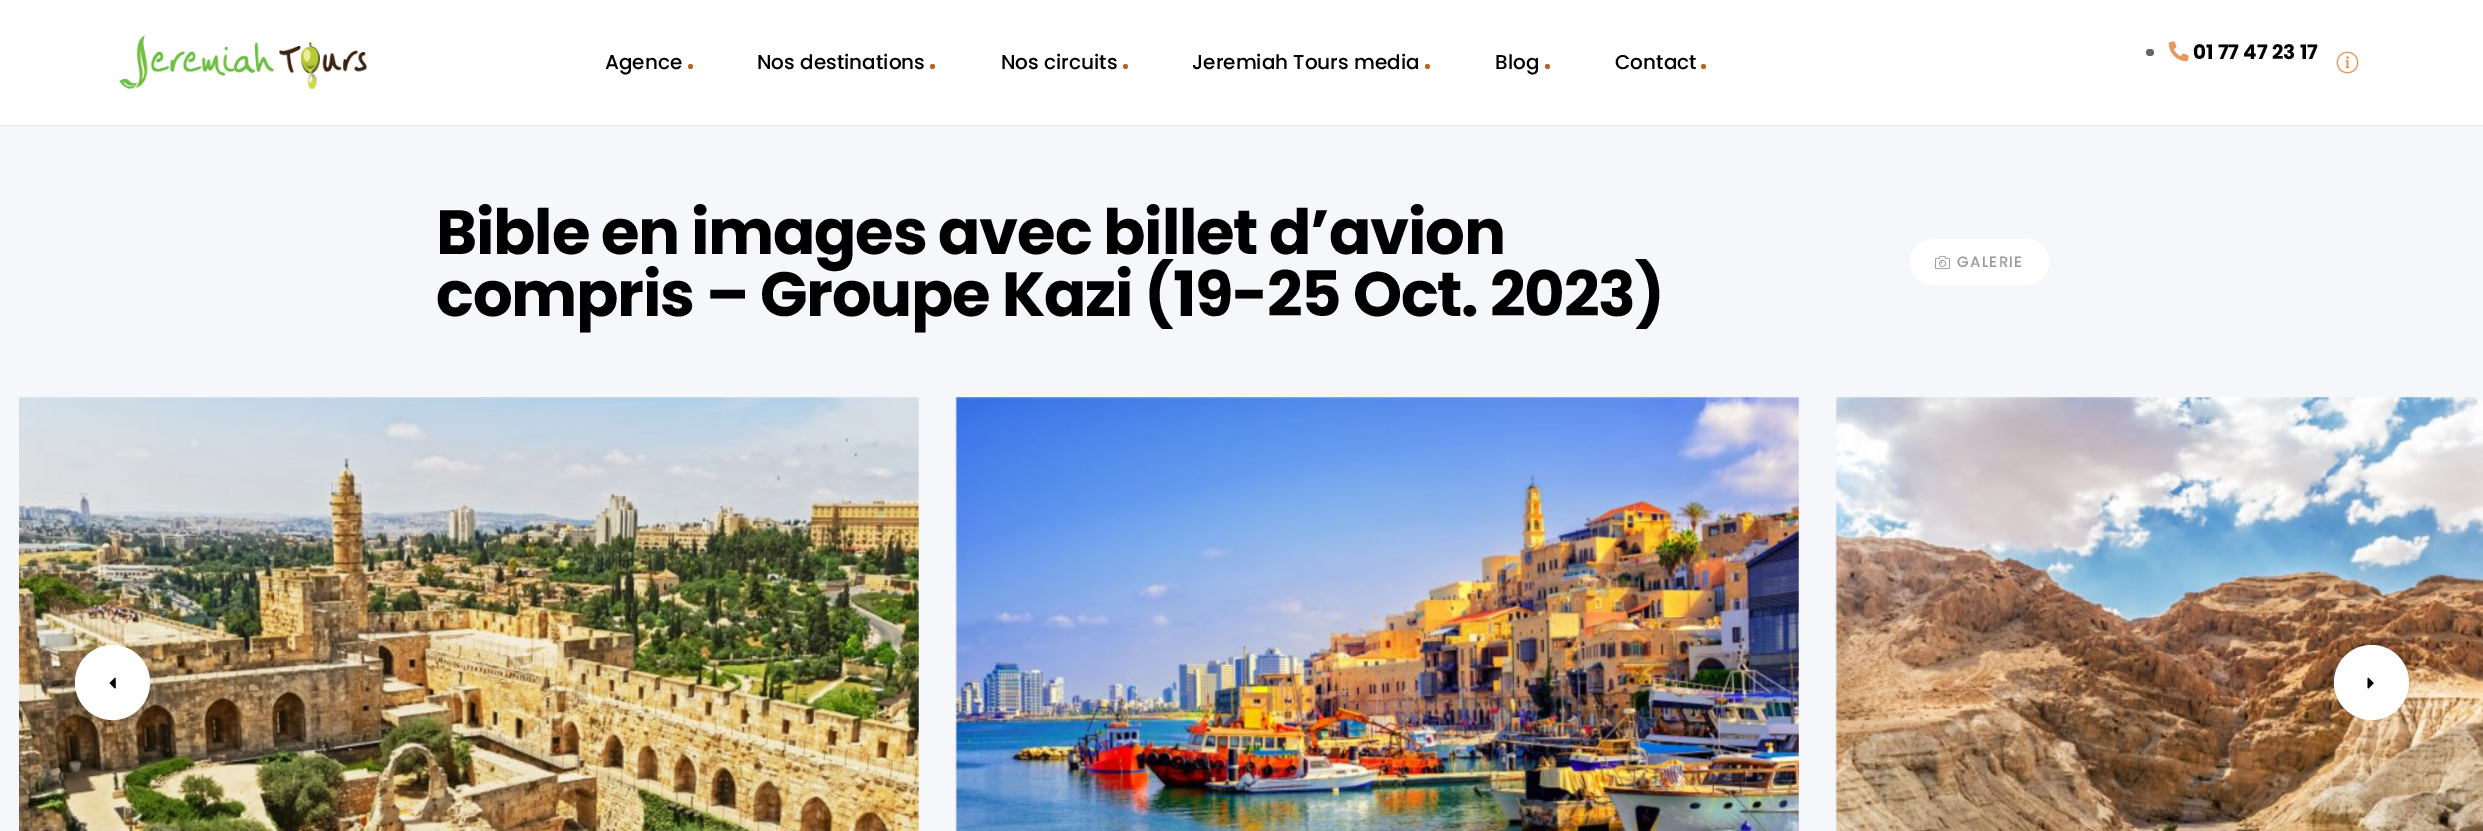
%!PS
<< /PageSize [2483 831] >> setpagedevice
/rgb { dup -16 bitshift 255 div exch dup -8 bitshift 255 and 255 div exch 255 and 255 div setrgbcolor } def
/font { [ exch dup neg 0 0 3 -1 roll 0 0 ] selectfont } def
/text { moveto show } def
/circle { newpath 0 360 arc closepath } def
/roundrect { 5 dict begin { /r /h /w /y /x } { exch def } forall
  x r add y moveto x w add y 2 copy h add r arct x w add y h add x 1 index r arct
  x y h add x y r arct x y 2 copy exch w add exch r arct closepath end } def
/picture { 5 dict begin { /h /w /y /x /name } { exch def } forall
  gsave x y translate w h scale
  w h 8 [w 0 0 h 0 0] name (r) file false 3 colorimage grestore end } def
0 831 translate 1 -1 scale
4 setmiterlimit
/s1 { /Poppins-Medium 20 font 16#000000 rgb } def
/s2 { /Poppins-Bold 20 font 16#000000 rgb } def
16#FFFFFF rgb
0 0 2483 831 rectfill
(pic1.raw) 119 35 248 55 picture
s1
(Agence) 605 69 text
16#B86426 rgb
690.5 66.5 2.5 circle fill
s1
(Nos destinations) 757 69 text
16#B86426 rgb
932.5 66.5 2.5 circle fill
s1
(Nos circuits) 1001 69 text
16#B86426 rgb
1125.5 66.5 2.5 circle fill
s1
(Jeremiah Tours media) 1192 69 text
16#B86426 rgb
1427.5 66.5 2.5 circle fill
s1
(Blog) 1495 69 text
16#B86426 rgb
1547.5 66.5 2.5 circle fill
s1
(Contact) 1615 69 text
16#B86426 rgb
1703.5 66.5 2.5 circle fill
16#666666 rgb
2146 49 8 7 3.5 roundrect fill
(pic2.raw) 2168 41 21 21 picture
s2
(01 77 47 23 17) 2193 59 text
(pic3.raw) 2336 51 23 23 picture
16#F6F7FB rgb
0 126 2483 705 rectfill
16#E5E5E6 rgb
0 125 2483 1 rectfill
/Poppins-Bold 62.5 font
16#000000 rgb
436 254 moveto -1.25 0 (Bible en images avec billet d’avion) ashow
436 316 moveto -1.25 0 (compris – Groupe Kazi \(19-25 Oct. 2023\)) ashow
16#FFFFFF rgb
1910 239 139 46 23 roundrect fill
(pic4.raw) 1935 255 15 15 picture
/Poppins-Medium 15 font
16#999999 rgb
1957 267 moveto 1.25 0 (GALERIE) ashow
(pic5.raw) 19 397 900 434 picture
(pic6.raw) 955 397 844 434 picture
(pic7.raw) 1835 397 648 434 picture
16#FFFFFF rgb
112.5 682.5 37.5 circle fill
(pic8.raw) 109 677 7 12 picture
2371.5 682.5 37.5 circle fill
(pic9.raw) 2367 677 7 12 picture
showpage
